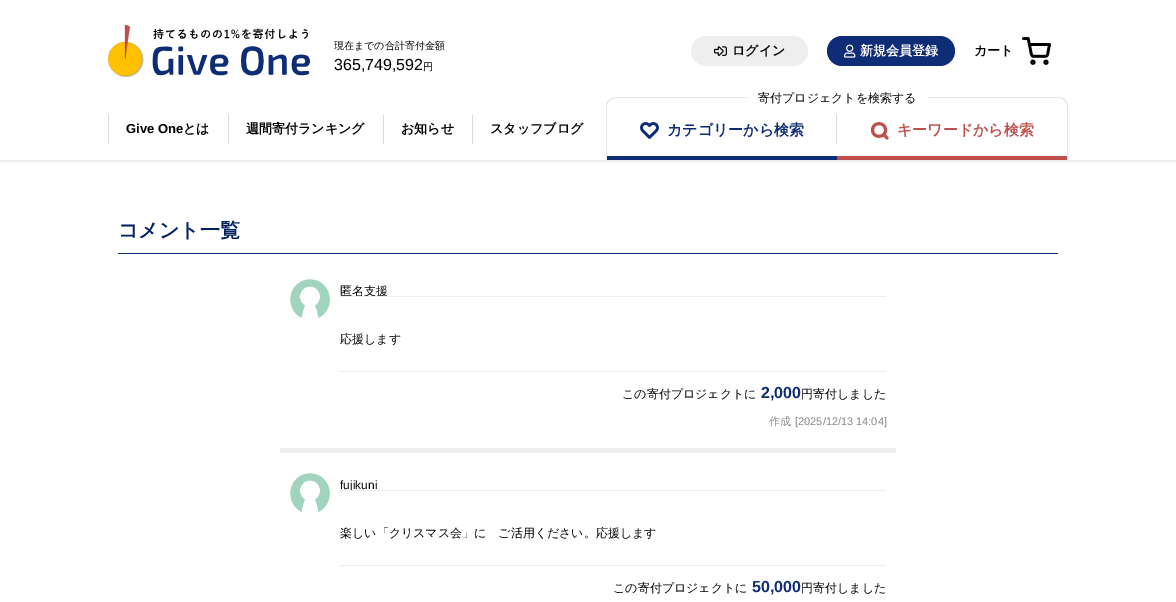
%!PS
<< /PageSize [1176 602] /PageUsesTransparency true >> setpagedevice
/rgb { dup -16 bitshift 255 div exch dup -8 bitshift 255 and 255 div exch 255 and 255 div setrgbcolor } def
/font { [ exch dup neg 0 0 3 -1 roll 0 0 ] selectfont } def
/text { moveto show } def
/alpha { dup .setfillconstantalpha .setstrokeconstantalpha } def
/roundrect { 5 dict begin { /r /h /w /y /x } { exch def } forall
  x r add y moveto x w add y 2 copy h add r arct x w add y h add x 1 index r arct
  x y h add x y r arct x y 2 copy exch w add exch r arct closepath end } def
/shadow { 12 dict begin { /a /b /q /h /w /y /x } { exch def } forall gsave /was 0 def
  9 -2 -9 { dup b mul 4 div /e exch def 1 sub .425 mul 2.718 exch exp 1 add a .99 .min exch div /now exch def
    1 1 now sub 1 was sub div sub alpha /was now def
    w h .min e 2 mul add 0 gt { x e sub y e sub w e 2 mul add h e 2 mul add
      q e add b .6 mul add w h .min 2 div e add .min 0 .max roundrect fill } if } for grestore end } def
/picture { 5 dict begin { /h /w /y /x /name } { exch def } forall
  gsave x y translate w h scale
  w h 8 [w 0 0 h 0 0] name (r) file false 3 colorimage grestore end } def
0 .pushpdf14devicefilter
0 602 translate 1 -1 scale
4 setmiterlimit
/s1 { /WenQuanYiZenHei-Medium 10 font 16#000000 rgb } def
/s2 { /LiberationSans-Regular 16 font 16#000000 rgb } def
/s3 { /WenQuanYiZenHei-Bold 13 font 16#000000 rgb } def
/s4 { /WenQuanYiZenHei-Bold 13 font 16#FFFFFF rgb } def
/s5 { /LiberationSans-Bold 13 font 16#000000 rgb } def
/s6 { /WenQuanYiZenHei-Medium 12 font 16#000000 rgb } def
/s7 { /WenQuanYiZenHei-Bold 15 font 16#0F2D76 rgb } def
/s8 { /WenQuanYiZenHei-Bold 15 font 16#C0504D rgb } def
/s9 { /WenQuanYiZenHei-Bold 20 font 16#002060 rgb } def
/s10 { /LiberationSans-Bold 16 font 16#0F2D76 rgb } def
/s11 { /WenQuanYiZenHei-Medium 11 font 16#888888 rgb } def
/s12 { /LiberationSans-Regular 11 font 16#888888 rgb } def
/s13 { /LiberationSans-Regular 12 font 16#000000 rgb } def
16#FFFFFF rgb
0 0 1176 602 rectfill
gsave
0 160 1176 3 rectclip
16#000000 rgb
0 0 1176 160 0 3 0.16 shadow
grestore
(pic1.raw) 108 25 202 52 picture
s1
(現在までの合計寄付金額) 334 49 text
s2
(365,749,592) 334 70 text
s1
(円) 423 70 text
16#EEEEEE rgb
691 36 117 30 15 roundrect fill
(pic2.raw) 714 46 13 10 picture
s3
(ログイン) 732 55 text
16#0F2D76 rgb
827 36 128 30 15 roundrect fill
(pic3.raw) 844 44 12 14 picture
s4
(新規会員登録) 860 55 text
s3
(カート) 974 55 text
(pic4.raw) 1022 37 29 28 picture
16#DBDBDB rgb
108 114 1 30 rectfill
s5
(Give One) 126 133 text
s3
(とは) 183 133 text
16#DBDBDB rgb
228 114 1 30 rectfill
s3
(週間寄付ランキング) 246 133 text
16#DBDBDB rgb
383 114 1 30 rectfill
s3
(お知らせ) 401 133 text
16#DBDBDB rgb
472 114 1 30 rectfill
s3
(スタッフブログ) 490 133 text
16#E5E8F0 rgb
616 97 moveto 1058 97 lineto 1064 97 1068 101 1068 107 curveto 1068 160 lineto 606 160 lineto 606 107 lineto 606 101 610 97 616 97 curveto closepath 616 98 moveto 1058 98 lineto 1063 98 1067 102 1067 107 curveto 1067 160 lineto 607 160 lineto 607 107 lineto 607 102 611 98 616 98 curveto closepath eofill
16#FFFFFF rgb
747 97 180 1 rectfill
s6
(寄付プロジェクトを検索する) 758 102 text
16#0F2D76 rgb
607 156 230 4 rectfill
(pic5.raw) 640 122 19 17 picture
s7
(カテゴリーから検索) 667 135 text
16#DBDBDB rgb
836 114 1 30 rectfill
16#C0504D rgb
837 156 230 4 rectfill
3 setlinewidth
1 setlinecap
1 setlinejoin
885.5 130 moveto 885.5 138.5 872.5 138.5 872.5 130 curveto 872.5 121.5 885.5 121.5 885.5 130 curveto closepath 887 138 moveto 883.5 134.5 lineto stroke
(キーワードから検索) 897 135 text
16#0F2D76 rgb
118 253 940 1 rectfill
s9
(コメント一覧) 118 237 text
16#EEEEEE rgb
280 448 616 5 rectfill
(pic6.raw) 290 279 40 39 picture
340 296 546 1 rectfill
gsave
340 279 546 17 rectclip
s6
(匿名支援) 340 295 text
grestore
s6
(応援します) 340 343 text
16#EEEEEE rgb
340 371 546 1 rectfill
s6
(この寄付プロジェクトに) 622 398 text
s10
(2,000) 761 398 text
s6
(円寄付しました) 801 398 text
s11
(作成) 769 425 text
s12
([2025/12/13 14:04]) 795 425 text
(pic7.raw) 290 473 40 39 picture
16#EEEEEE rgb
340 490 546 1 rectfill
gsave
340 473 546 17 rectclip
s13
(fujikuni) 340 489 text
grestore
s6
(楽しい「クリスマス会」に　ご活用ください。応援します) 340 537 text
16#EEEEEE rgb
340 565 546 1 rectfill
s6
(この寄付プロジェクトに) 613 592 text
s10
(50,000) 752 592 text
s6
(円寄付しました) 801 592 text
.poppdf14devicefilter showpage
